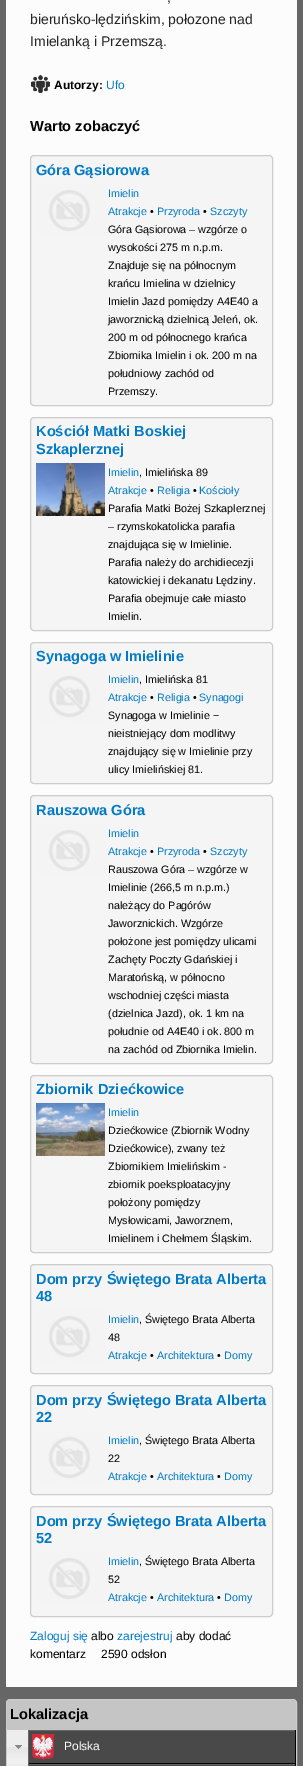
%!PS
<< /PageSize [303 1766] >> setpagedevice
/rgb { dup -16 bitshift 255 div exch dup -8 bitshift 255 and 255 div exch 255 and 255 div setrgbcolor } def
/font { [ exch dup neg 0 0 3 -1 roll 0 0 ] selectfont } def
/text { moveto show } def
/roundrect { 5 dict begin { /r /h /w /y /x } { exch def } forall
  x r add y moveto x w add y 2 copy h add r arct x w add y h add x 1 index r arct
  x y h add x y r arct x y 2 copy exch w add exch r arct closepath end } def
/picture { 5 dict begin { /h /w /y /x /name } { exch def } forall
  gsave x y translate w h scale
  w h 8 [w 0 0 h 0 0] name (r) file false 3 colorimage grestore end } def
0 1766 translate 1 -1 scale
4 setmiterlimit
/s1 { /LiberationSans-Regular 14 font 16#252525 rgb } def
/s2 { /LiberationSans-Bold 12 font 16#000000 rgb } def
/s3 { /LiberationSans-Regular 12 font 16#027AC6 rgb } def
/s4 { /LiberationSans-Bold 14.6 font 16#000000 rgb } def
/s5 { /LiberationSans-Bold 14.6 font 16#027AC6 rgb } def
/s6 { /LiberationSans-Regular 10.75 font 16#027AC6 rgb } def
/s7 { /LiberationSans-Regular 10.75 font 16#000000 rgb } def
/s8 { /LiberationSans-Regular 12 font 16#000000 rgb } def
/s9 { /LiberationSans-Regular 12 font 16#FFFFFF rgb } def
16#666666 rgb
0 0 303 1766 rectfill
16#FCFCFC rgb
6 0 291 1687 rectfill
s1
(,) 167 2 text
(bieruńsko-lędzińskim, połozone nad) 30 24 text
(Imielanką i Przemszą.) 30 46 text
(pic1.raw) 31 75 19 18 picture
s2
(Autorzy:) 54 89 text
s3
(Ufo) 106 89 text
s4
(Warto zobaczyć) 30 131 text
16#F5F5F5 rgb
30.5 155.5 242 250 3.5 roundrect gsave fill grestore
16#CDCDCD rgb
stroke
s5
(Góra Gąsiorowa) 36 175 text
(pic2.raw) 36 184 69 53 picture
s6
(Imielin) 108 197 text
(Atrakcje) 108 215 text
s7
(•) 150 215 text
s6
(Przyroda) 157 215 text
s7
(•) 203 215 text
s6
(Szczyty) 210 215 text
s7
(Góra Gąsiorowa – wzgórze o) 108 233 text
(wysokości 275 m n.p.m.) 108 251 text
(Znajduje się na północnym) 108 269 text
(krańcu Imielina w dzielnicy) 108 287 text
(Imielin Jazd pomiędzy A4E40 a) 108 305 text
(jaworznicką dzielnicą Jeleń, ok.) 108 323 text
(200 m od północnego krańca) 108 341 text
(Zbiornika Imielin i ok. 200 m na) 108 359 text
(południowy zachód od) 108 377 text
(Przemszy.) 108 395 text
16#F5F5F5 rgb
30.5 417.5 242 213 3.5 roundrect gsave fill grestore
16#CDCDCD rgb
stroke
s5
(Kościół Matki Boskiej) 36 436 text
(Szkaplerznej) 36 454 text
(pic3.raw) 36 463 69 53 picture
s6
(Imielin) 108 476 text
s7
(, Imielińska 89) 139 476 text
s6
(Atrakcje) 108 494 text
s7
(•) 150 494 text
s6
(Religia) 157 494 text
s7
(•) 193 494 text
s6
(Kościoły) 199 494 text
s7
(Parafia Matki Bożej Szkaplerznej) 108 512 text
(– rzymskokatolicka parafia) 108 530 text
(znajdująca się w Imielinie.) 108 548 text
(Parafia należy do archidiecezji) 108 566 text
(katowickiej i dekanatu Lędziny.) 108 584 text
(Parafia obejmuje całe miasto) 108 602 text
(Imielin.) 108 620 text
16#F5F5F5 rgb
30.5 642.5 242 141 3.5 roundrect gsave fill grestore
16#CDCDCD rgb
stroke
s5
(Synagoga w Imielinie) 36 661 text
(pic2.raw) 36 670 69 53 picture
s6
(Imielin) 108 683 text
s7
(, Imielińska 81) 139 683 text
s6
(Atrakcje) 108 701 text
s7
(•) 150 701 text
s6
(Religia) 157 701 text
s7
(•) 193 701 text
s6
(Synagogi) 199 701 text
s7
(Synagoga w Imielinie −) 108 719 text
(nieistniejący dom modlitwy) 108 737 text
(znajdujący się w Imielinie przy) 108 755 text
(ulicy Imielińskiej 81.) 108 773 text
16#F5F5F5 rgb
30.5 795.5 242 268 3.5 roundrect gsave fill grestore
16#CDCDCD rgb
stroke
s5
(Rauszowa Góra) 36 815 text
(pic4.raw) 36 824 69 53 picture
s6
(Imielin) 108 837 text
(Atrakcje) 108 855 text
s7
(•) 150 855 text
s6
(Przyroda) 157 855 text
s7
(•) 203 855 text
s6
(Szczyty) 210 855 text
s7
(Rauszowa Góra – wzgórze w) 108 873 text
(Imielinie \(266,5 m n.p.m.\)) 108 891 text
(należący do Pagórów) 108 909 text
(Jaworznickich. Wzgórze) 108 927 text
(położone jest pomiędzy ulicami) 108 945 text
(Zachęty Poczty Gdańskiej i) 108 963 text
(Maratońską, w północno) 108 981 text
(wschodniej części miasta) 108 999 text
(\(dzielnica Jazd\), ok. 1 km na) 108 1017 text
(południe od A4E40 i ok. 800 m) 108 1035 text
(na zachód od Zbiornika Imielin.) 108 1053 text
16#F5F5F5 rgb
30.5 1075.5 242 177 3.5 roundrect gsave fill grestore
16#CDCDCD rgb
stroke
s5
(Zbiornik Dziećkowice) 36 1094 text
(pic5.raw) 36 1103 69 53 picture
s6
(Imielin) 108 1116 text
s7
(Dziećkowice \(Zbiornik Wodny) 108 1134 text
(Dziećkowice\), zwany też) 108 1152 text
(Zbiornikiem Imielińskim -) 108 1170 text
(zbiornik poeksploatacyjny) 108 1188 text
(położony pomiędzy) 108 1206 text
(Mysłowicami, Jaworznem,) 108 1224 text
(Imielinem i Chełmem Śląskim.) 108 1242 text
16#F5F5F5 rgb
30.5 1264.5 242 109 3.5 roundrect gsave fill grestore
16#CDCDCD rgb
stroke
s5
(Dom przy Świętego Brata Alberta) 36 1284 text
(48) 36 1301 text
(pic4.raw) 36 1310 69 53 picture
s6
(Imielin) 108 1323 text
s7
(, Świętego Brata Alberta) 139 1323 text
(48) 108 1341 text
s6
(Atrakcje) 108 1359 text
s7
(•) 150 1359 text
s6
(Architektura) 157 1359 text
s7
(•) 217 1359 text
s6
(Domy) 224 1359 text
16#F5F5F5 rgb
30.5 1385.5 242 109 3.5 roundrect gsave fill grestore
16#CDCDCD rgb
stroke
s5
(Dom przy Świętego Brata Alberta) 36 1405 text
(22) 36 1422 text
(pic2.raw) 36 1431 69 53 picture
s6
(Imielin) 108 1444 text
s7
(, Świętego Brata Alberta) 139 1444 text
(22) 108 1462 text
s6
(Atrakcje) 108 1480 text
s7
(•) 150 1480 text
s6
(Architektura) 157 1480 text
s7
(•) 217 1480 text
s6
(Domy) 224 1480 text
16#F5F5F5 rgb
30.5 1506.5 242 110 3.5 roundrect gsave fill grestore
16#CDCDCD rgb
stroke
s5
(Dom przy Świętego Brata Alberta) 36 1526 text
(52) 36 1543 text
(pic4.raw) 36 1552 69 53 picture
s6
(Imielin) 108 1565 text
s7
(, Świętego Brata Alberta) 139 1565 text
(52) 108 1583 text
s6
(Atrakcje) 108 1601 text
s7
(•) 150 1601 text
s6
(Architektura) 157 1601 text
s7
(•) 217 1601 text
s6
(Domy) 224 1601 text
s3
(Zaloguj się) 30 1640 text
s8
(albo) 91 1640 text
s3
(zarejestruj) 117 1640 text
s8
(aby dodać) 176 1640 text
(komentarz) 30 1658 text
(2590 odsłon) 101 1658 text
16#CDCDCD rgb
6.5 1699.5 290 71 3.5 roundrect stroke
16#C5C5C5 rgb
7 1700 289 30 rectfill
s4
(Lokalizacja) 10 1719 text
(pic6.raw) 7 1730 21 34 picture
(pic7.raw) 15 1745 7 4 picture
16#494949 rgb
29 1731 266 32 rectfill
16#000000 rgb
295 1730 1 34 rectfill
28 1763 268 1 rectfill
16#666666 rgb
28 1763 1 1 rectfill
(pic8.raw) 32 1734 22 26 picture
s9
(Polska) 64 1750 text
16#EDEDED rgb
7 1764 21 2 rectfill
16#494949 rgb
28 1765 268 1 rectfill
16#000000 rgb
295 1764 1 2 rectfill
16#666666 rgb
28 1764 1 2 rectfill
showpage
